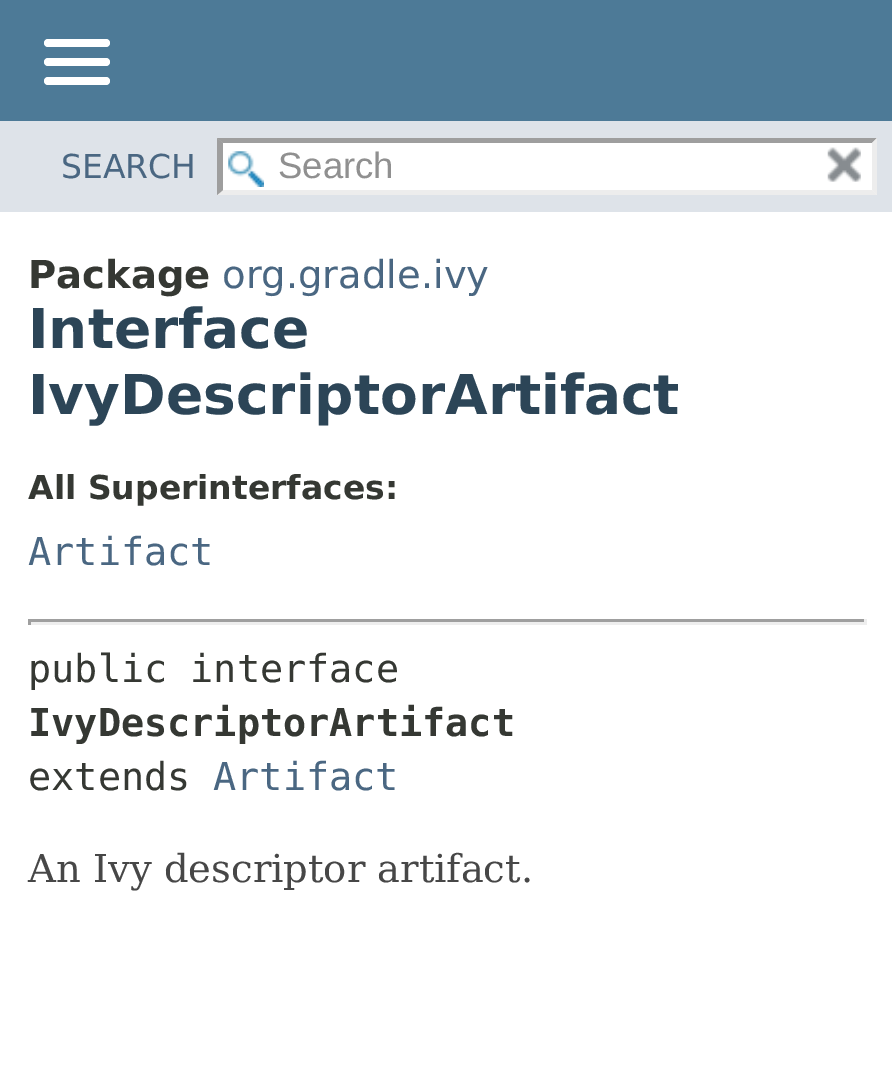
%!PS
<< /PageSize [892 1088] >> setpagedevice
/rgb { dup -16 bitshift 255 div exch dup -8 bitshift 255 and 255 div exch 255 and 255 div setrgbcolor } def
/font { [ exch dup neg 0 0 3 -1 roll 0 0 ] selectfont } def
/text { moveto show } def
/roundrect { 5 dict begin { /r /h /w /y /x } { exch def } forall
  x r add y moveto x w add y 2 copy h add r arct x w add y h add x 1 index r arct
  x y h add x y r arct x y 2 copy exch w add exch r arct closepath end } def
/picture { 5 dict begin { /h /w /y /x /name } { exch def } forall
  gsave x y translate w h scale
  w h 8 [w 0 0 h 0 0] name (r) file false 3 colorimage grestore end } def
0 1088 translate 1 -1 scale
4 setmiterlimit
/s1 { /DejaVuSans-Regular 33 font 16#4A6782 rgb } def
/s2 { /LiberationSans-Regular 36.5 font 16#909090 rgb } def
/s3 { /DejaVuSans-Bold 38.5 font 16#353833 rgb } def
/s4 { /DejaVuSans-Regular 38.5 font 16#4A6782 rgb } def
/s5 { /DejaVuSans-Bold 55 font 16#2C4557 rgb } def
/s6 { /DejaVuSans-Bold 33 font 16#353833 rgb } def
/s7 { /DejaVuSansMono-Regular 38.5 font 16#4A6782 rgb } def
/s8 { /DejaVuSansMono-Regular 38.5 font 16#353833 rgb } def
/s9 { /DejaVuSansMono-Bold 38.5 font 16#353833 rgb } def
/s10 { /DejaVuSerif-Regular 38.5 font 16#474747 rgb } def
16#FFFFFF rgb
0 0 892 1088 rectfill
16#4D7A97 rgb
0 0 892 121 rectfill
16#FFFFFF rgb
44 39 66 8 4 roundrect fill
44 58 66 8 4 roundrect fill
44 77 66 8 4 roundrect fill
16#DEE3E9 rgb
0 121 892 91 rectfill
s1
(SEARCH) 61 178 text
16#FFFFFF rgb
217 138 660 57 rectfill
(pic1.raw) 228 151 36 36 picture
16#9E9E9E rgb
217 138 moveto 877 138 lineto 872 143 lineto 223 143 lineto closepath fill
16#EDEDED rgb
877 138 moveto 877 195 lineto 872 190 lineto 872 143 lineto closepath fill
877 195 moveto 217 195 lineto 223 190 lineto 872 190 lineto closepath fill
16#9E9E9E rgb
217 195 moveto 217 138 lineto 223 143 lineto 223 190 lineto closepath fill
s2
(Search) 278 178 text
(pic2.raw) 827 147 34 35 picture
s3
(Package) 28 288 text
s4
(org.gradle.ivy) 222 288 text
s5
(Interface) 28 348 text
(IvyDescriptorArtifact) 28 414 text
s6
(All Superinterfaces:) 28 499 text
s7
(Artifact) 28 565 text
16#9F9F9F rgb
28 619 838 3 rectfill
16#EEEEEE rgb
864 619 3 6 rectfill
28 622 838 3 rectfill
16#9F9F9F rgb
28 619 3 6 rectfill
s8
(public interface) 28 682 text
s9
(IvyDescriptorArtifact) 28 736 text
s8
(extends) 28 790 text
s7
(Artifact) 213 790 text
s10
(An Ivy descriptor artifact.) 28 882 text
showpage
